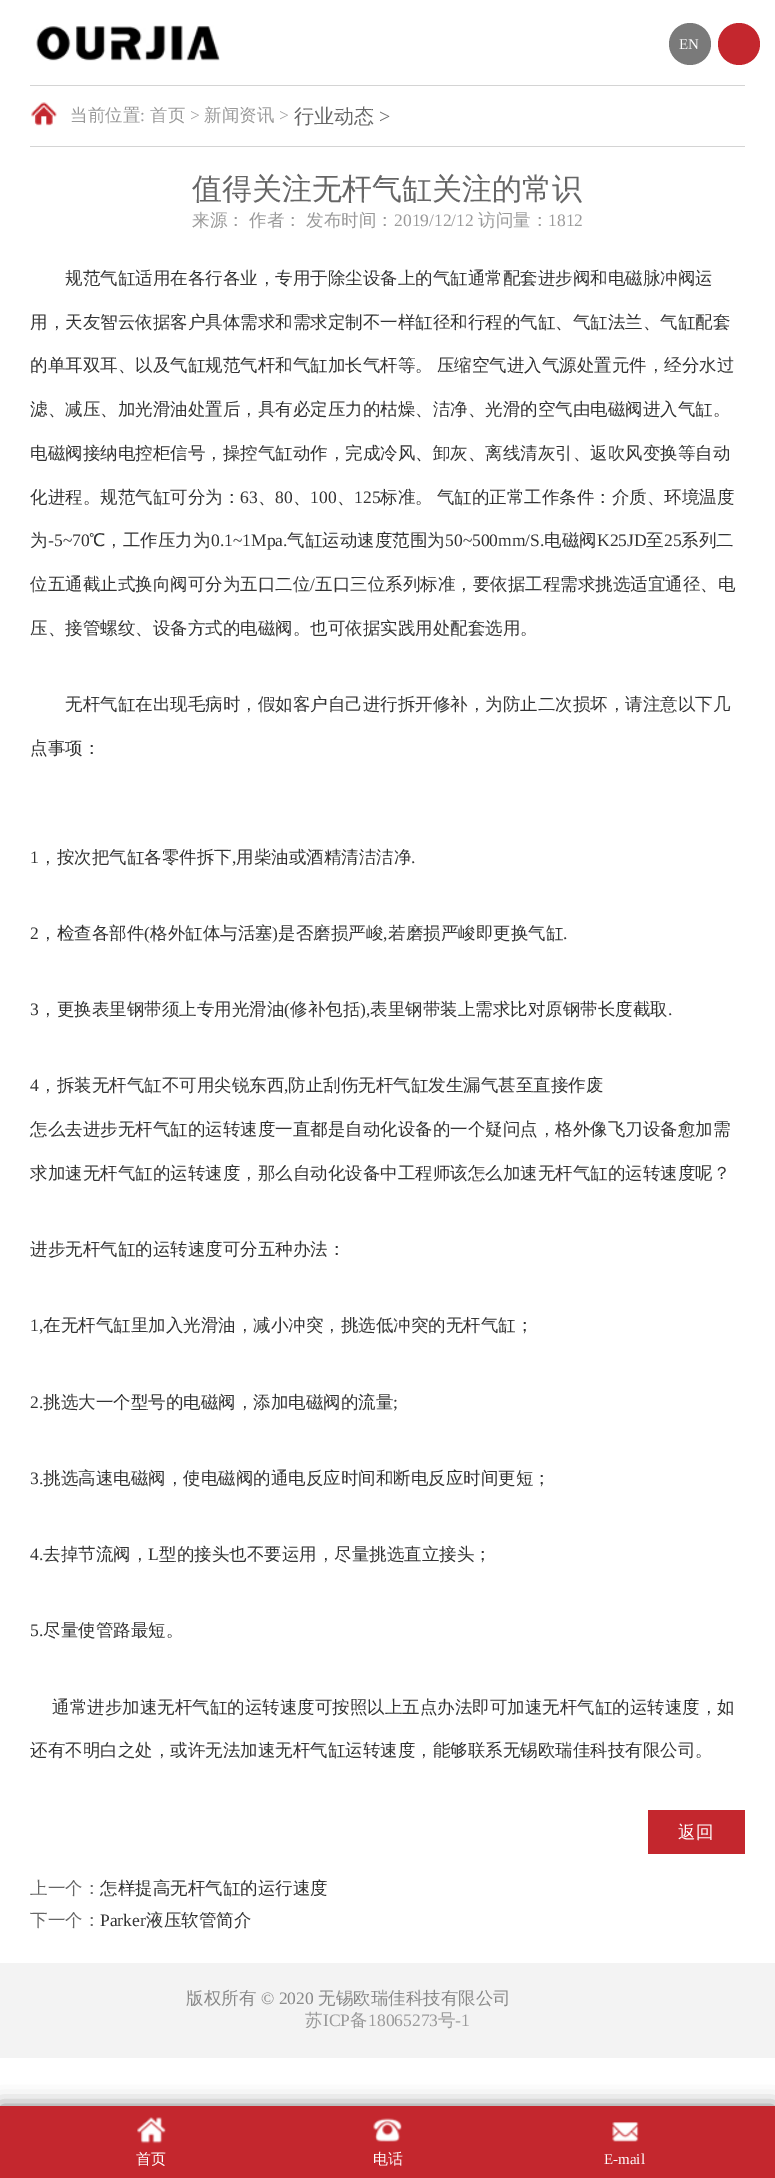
%!PS
<< /PageSize [775 2178] /PageUsesTransparency true >> setpagedevice
/rgb { dup -16 bitshift 255 div exch dup -8 bitshift 255 and 255 div exch 255 and 255 div setrgbcolor } def
/font { [ exch dup neg 0 0 3 -1 roll 0 0 ] selectfont } def
/text { moveto show } def
/alpha { dup .setfillconstantalpha .setstrokeconstantalpha } def
/circle { newpath 0 360 arc closepath } def
/roundrect { 5 dict begin { /r /h /w /y /x } { exch def } forall
  x r add y moveto x w add y 2 copy h add r arct x w add y h add x 1 index r arct
  x y h add x y r arct x y 2 copy exch w add exch r arct closepath end } def
/shadow { 12 dict begin { /a /b /q /h /w /y /x } { exch def } forall gsave /was 0 def
  9 -2 -9 { dup b mul 4 div /e exch def 1 sub .425 mul 2.718 exch exp 1 add a .99 .min exch div /now exch def
    1 1 now sub 1 was sub div sub alpha /was now def
    w h .min e 2 mul add 0 gt { x e sub y e sub w e 2 mul add h e 2 mul add
      q e add b .6 mul add w h .min 2 div e add .min 0 .max roundrect fill } if } for grestore end } def
/picture { 5 dict begin { /h /w /y /x /name } { exch def } forall
  gsave x y translate w h scale
  w h 8 [w 0 0 h 0 0] name (r) file false 3 colorimage grestore end } def
0 .pushpdf14devicefilter
0 2178 translate 1 -1 scale
4 setmiterlimit
/s1 { /LiberationSerif-Regular 15 font 16#FFFFFF rgb } def
/s2 { /WenQuanYiZenHei-Medium 17.5 font 16#999999 rgb } def
/s3 { /LiberationSerif-Regular 17.5 font 16#999999 rgb } def
/s4 { /WenQuanYiZenHei-Medium 20 font 16#666666 rgb } def
/s5 { /LiberationSerif-Regular 20 font 16#666666 rgb } def
/s6 { /WenQuanYiZenHei-Medium 30 font 16#666666 rgb } def
/s7 { /WenQuanYiZenHei-Medium 17.5 font 16#333333 rgb } def
/s8 { /LiberationSerif-Regular 17.5 font 16#333333 rgb } def
/s9 { /WenQuanYiZenHei-Medium 17.5 font 16#FFFFFF rgb } def
/s10 { /WenQuanYiZenHei-Medium 17.5 font 16#666666 rgb } def
/s11 { /WenQuanYiZenHei-Medium 17.5 font 16#888888 rgb } def
/s12 { /LiberationSerif-Regular 17.5 font 16#888888 rgb } def
/s13 { /WenQuanYiZenHei-Medium 15 font 16#FFFFFF rgb } def
16#FFFFFF rgb
0 0 775 2178 rectfill
(pic1.raw) 36 25 184 36 picture
16#7A7A7A rgb
690 44 21 circle fill
s1
(EN) 679 49 text
16#C4272E rgb
739 44 21 circle fill
16#D4D4D4 rgb
30 85 715 1 rectfill
30 146 715 1 rectfill
(pic2.raw) 31 102 26 24 picture
s2
(当前位置) 70 121 text
s3
(:) 140 121 text
s2
(首页) 150 121 text
s3
(>) 190 121 text
s2
(新闻资讯) 204 121 text
s3
(>) 279 121 text
s4
(行业动态) 294 123 text
s5
(>) 379 123 text
s6
(值得关注无杆气缸关注的常识) 192 199 text
s2
(来源：) 192 226 text
(作者：) 249 226 text
(发布时间：) 306 226 text
s3
(2019/12/12) 394 226 text
s2
(访问量：) 478 226 text
s3
(1812) 548 226 text
s7
(规范气缸适用在各行各业，专用于除尘设备上的气缸通常配套进步阀和电磁脉冲阀运) 65 284 text
(用，天友智云依据客户具体需求和需求定制不一样缸径和行程的气缸、气缸法兰、气缸配套) 30 328 text
30 371 moveto -1 0 32 (的单耳双耳、以及气缸规范气杆和气缸加长气杆等。 压缩空气进入气源处置元件，经分水过) widthshow
(滤、减压、加光滑油处置后，具有必定压力的枯燥、洁净、光滑的空气由电磁阀进入气缸。) 30 415 text
(电磁阀接纳电控柜信号，操控气缸动作，完成冷风、卸灰、离线清灰引、返吹风变换等自动) 30 459 text
(化进程。规范气缸可分为：) 30 503 text
s8
(63) 240 503 text
s7
(、) 258 503 text
s8
(80) 275 503 text
s7
(、) 293 503 text
s8
(100) 310 503 text
s7
(、) 337 503 text
s8
(125) 354 503 text
/WenQuanYiZenHei-Medium 17.5 font
380 503 moveto -1 0 32 (标准。 气缸的正常工作条件：介质、环境温度) widthshow
(为) 30 546 text
s8
(-5~70) 48 546 text
s7
(℃，工作压力为) 89 546 text
s8
(0.1~1Mpa.) 211 546 text
s7
(气缸运动速度范围为) 287 546 text
s8
(50~500mm/S.) 445 546 text
s7
(电磁阀) 544 546 text
s8
(K25JD) 597 546 text
s7
(至) 646 546 text
s8
(25) 664 546 text
s7
(系列二) 681 546 text
(位五通截止式换向阀可分为五口二位) 30 590 text
s8
(/) 310 590 text
s7
(五口三位系列标准，要依据工程需求挑选适宜通径、电) 315 590 text
(压、接管螺纹、设备方式的电磁阀。也可依据实践用处配套选用。) 30 634 text
(无杆气缸在出现毛病时，假如客户自己进行拆开修补，为防止二次损坏，请注意以下几) 65 710 text
(点事项：) 30 754 text
s8
(1) 30 863 text
s7
(，按次把气缸各零件拆下) 39 863 text
(用柴油或酒精清洁洁净) 236 863 text
s8
(,) 232 863 text
(.) 411 863 text
(2) 30 939 text
s7
(，检查各部件) 39 939 text
s8
(\() 144 939 text
s7
(格外缸体与活塞) 150 939 text
s8
(\)) 272 939 text
s7
(是否磨损严峻) 278 939 text
(若磨损严峻即更换气缸) 388 939 text
s8
(,) 383 939 text
(.) 563 939 text
(3) 30 1015 text
s7
(，更换表里钢带须上专用光滑油) 39 1015 text
s8
(\() 284 1015 text
s7
(修补包括) 290 1015 text
s8
(\),) 360 1015 text
s7
(表里钢带装上需求比对原钢带长度截取) 370 1015 text
s8
(.) 668 1015 text
(4) 30 1091 text
s7
(，拆装无杆气缸不可用尖锐东西) 39 1091 text
(防止刮伤无杆气缸发生漏气甚至直接作废) 288 1091 text
s8
(,) 284 1091 text
s7
(怎么去进步无杆气缸的运转速度一直都是自动化设备的一个疑问点，格外像飞刀设备愈加需) 30 1135 text
(求加速无杆气缸的运转速度，那么自动化设备中工程师该怎么加速无杆气缸的运转速度呢？) 30 1179 text
(进步无杆气缸的运转速度可分五种办法：) 30 1255 text
s8
(1,) 30 1331 text
s7
(在无杆气缸里加入光滑油，减小冲突，挑选低冲突的无杆气缸；) 43 1331 text
s8
(2.) 30 1408 text
s7
(挑选大一个型号的电磁阀，添加电磁阀的流量) 43 1408 text
s8
(;) 393 1408 text
(3.) 30 1484 text
s7
(挑选高速电磁阀，使电磁阀的通电反应时间和断电反应时间更短；) 43 1484 text
s8
(4.) 30 1560 text
s7
(去掉节流阀，) 43 1560 text
s8
(L) 148 1560 text
s7
(型的接头也不要运用，尽量挑选直立接头；) 159 1560 text
s8
(5.) 30 1636 text
s7
(尽量使管路最短。) 43 1636 text
(通常进步加速无杆气缸的运转速度可按照以上五点办法即可加速无杆气缸的运转速度，如) 52 1713 text
(还有不明白之处，或许无法加速无杆气缸运转速度，能够联系无锡欧瑞佳科技有限公司。) 30 1756 text
16#C4272E rgb
648 1810 97 44 rectfill
s9
(返回) 678 1838 text
s10
(上一个：) 30 1894 text
s7
(怎样提高无杆气缸的运行速度) 100 1894 text
s10
(下一个：) 30 1926 text
s8
(Parker) 100 1926 text
s7
(液压软管简介) 146 1926 text
16#F3F3F3 rgb
0 1963 775 95 rectfill
s11
(版权所有) 186 2004 text
s12
(© 2020) 261 2004 text
s11
(无锡欧瑞佳科技有限公司) 318 2004 text
s2
(苏) 305 2026 text
s3
(ICP) 323 2026 text
s2
(备) 350 2026 text
s3
(18065273) 368 2026 text
s2
(号) 438 2026 text
s3
(-1) 455 2026 text
16#000000 rgb
0 2106 775 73 0 9.5 0.5 shadow
16#C4272E rgb
0 2106 775 72 rectfill
(pic3.raw) 137 2117 29 27 picture
s13
(首页) 136 2164 text
(pic4.raw) 373 2118 29 24 picture
(电话) 373 2164 text
(pic5.raw) 612 2122 27 20 picture
s1
(E-mail) 604 2164 text
.poppdf14devicefilter showpage
